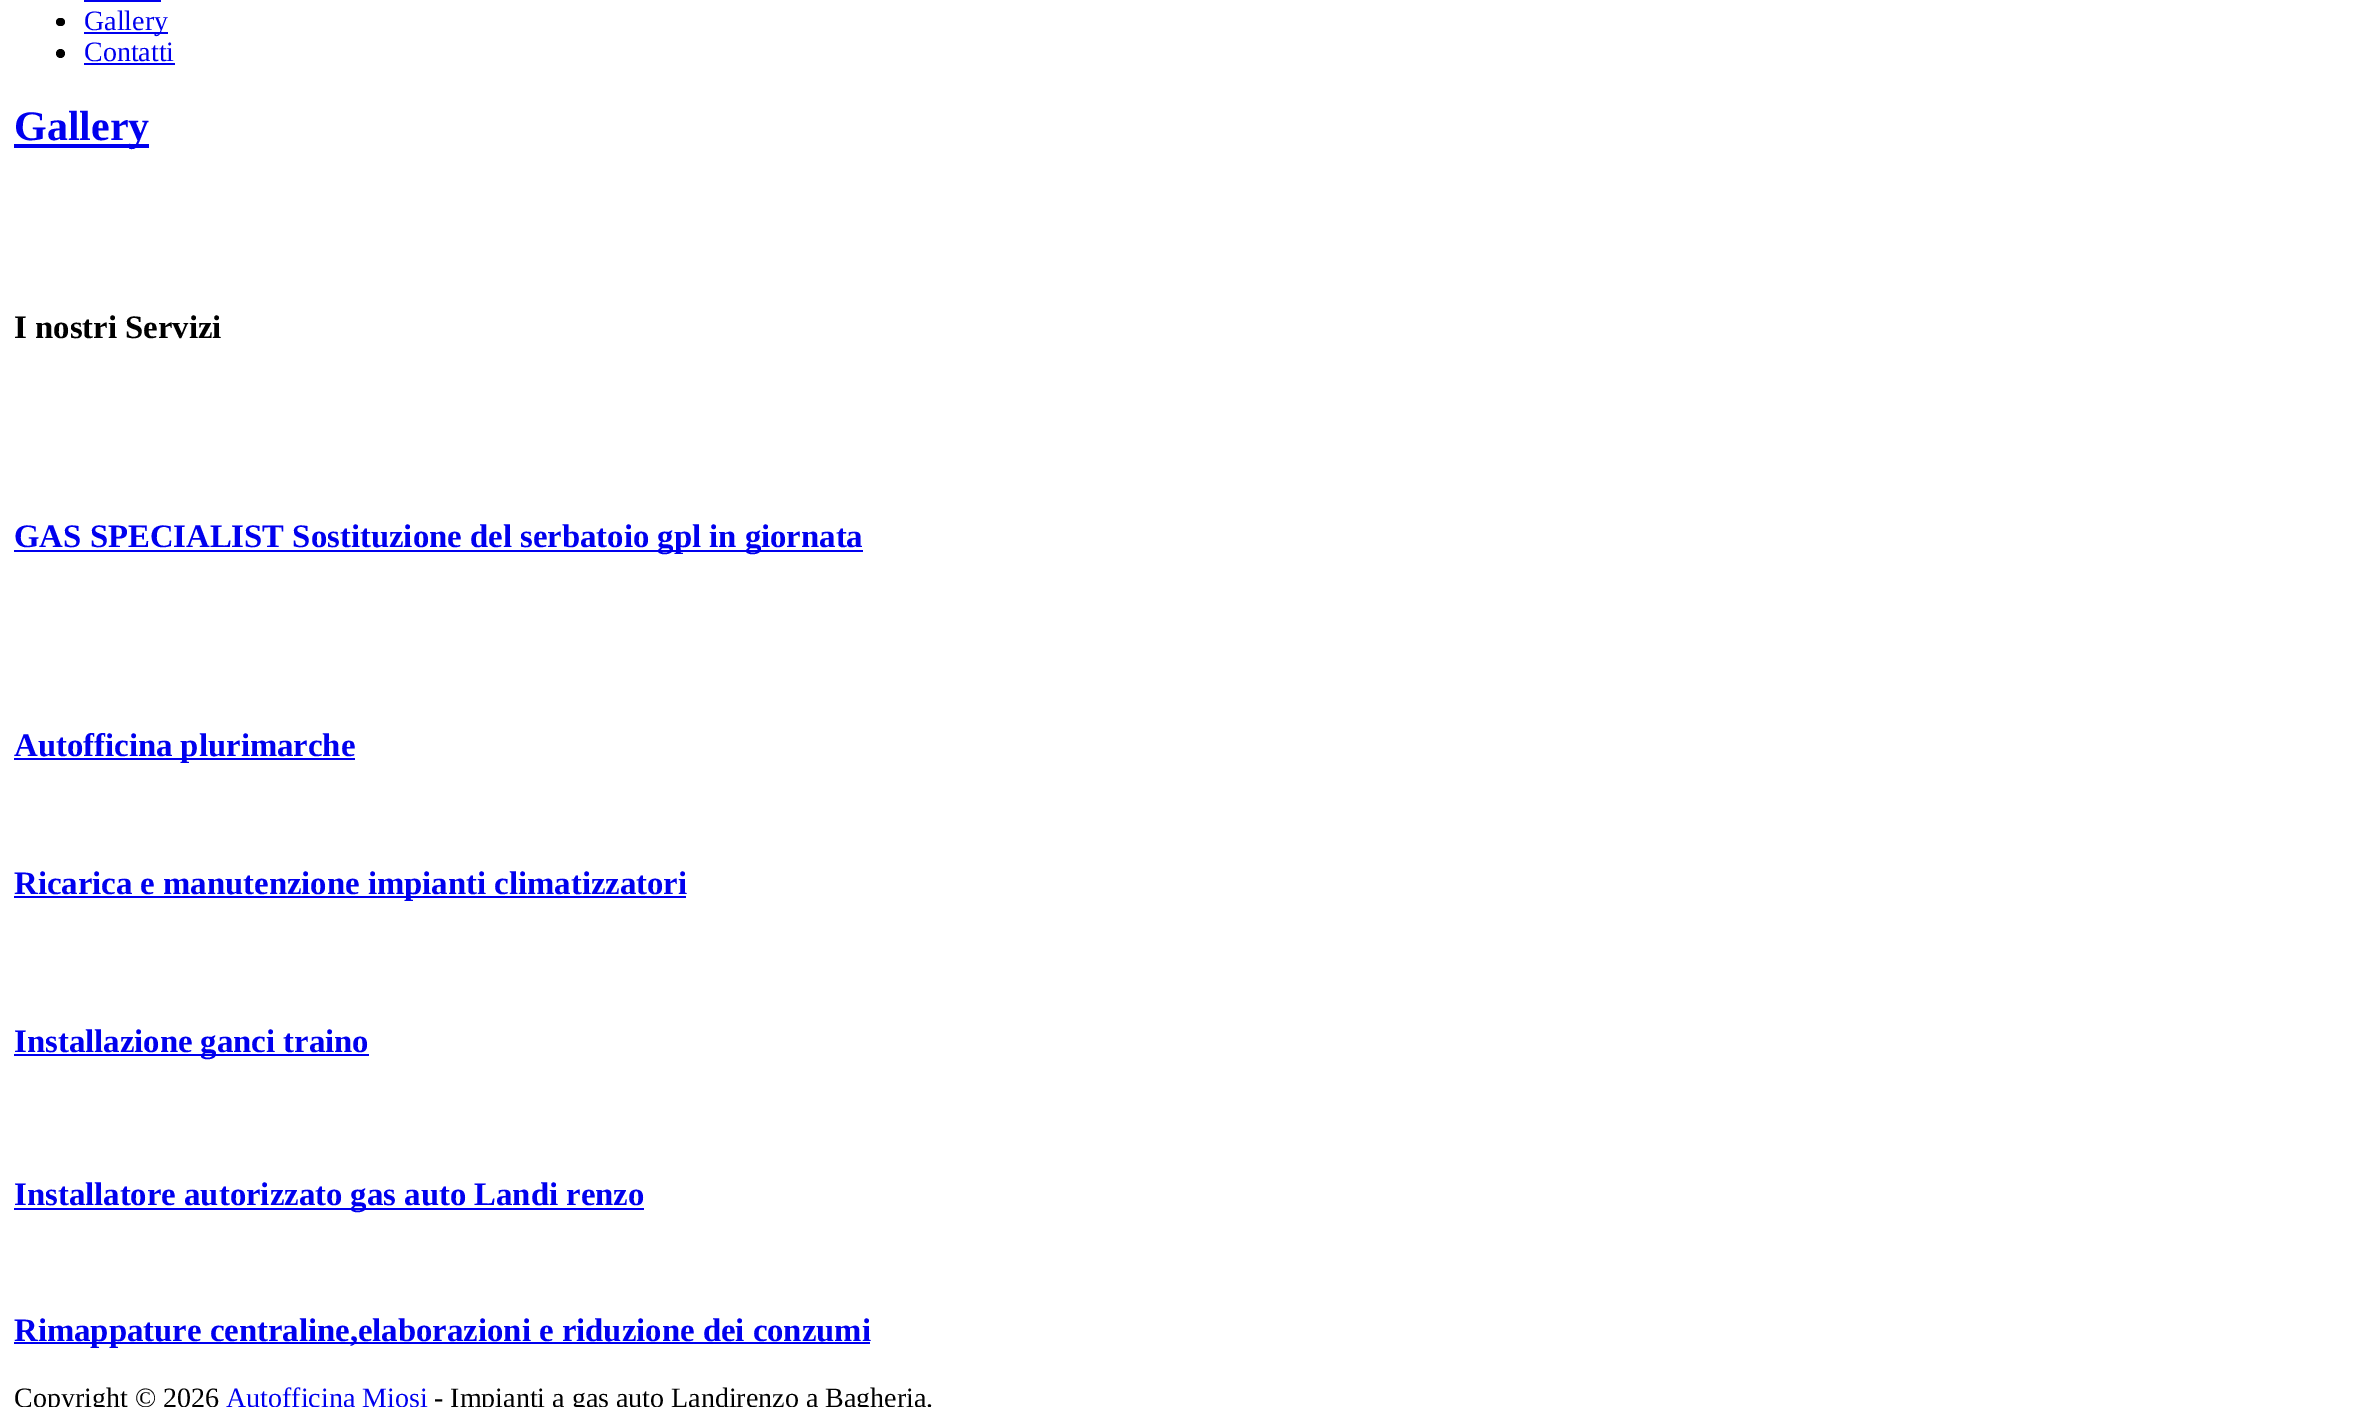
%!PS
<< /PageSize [2366 1407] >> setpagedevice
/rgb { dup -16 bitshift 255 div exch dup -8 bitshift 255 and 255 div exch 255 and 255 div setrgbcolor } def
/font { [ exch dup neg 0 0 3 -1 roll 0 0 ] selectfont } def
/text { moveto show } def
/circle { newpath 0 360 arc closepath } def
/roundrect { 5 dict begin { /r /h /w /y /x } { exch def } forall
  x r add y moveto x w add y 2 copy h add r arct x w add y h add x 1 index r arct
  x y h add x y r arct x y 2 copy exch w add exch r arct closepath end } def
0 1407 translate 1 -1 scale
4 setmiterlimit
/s1 { /LiberationSerif-Regular 28 font 16#0000EE rgb } def
/s2 { /LiberationSerif-Bold 42 font 16#0000EE rgb } def
/s3 { /LiberationSerif-Bold 32.75 font 16#000000 rgb } def
/s4 { /LiberationSerif-Bold 32.75 font 16#0000EE rgb } def
/s5 { /LiberationSerif-Regular 28 font 16#000000 rgb } def
16#FFFFFF rgb
0 0 2366 1407 rectfill
16#0000EE rgb
84 0 77 2 rectfill
16#000000 rgb
56 18 9 8 4 roundrect fill
16#0000EE rgb
84 32 84 2 rectfill
s1
(Gallery) 84 30 text
16#000000 rgb
60.5 53.5 4.5 circle fill
s1
(Contatti) 84 61 text
84 63 91 2 rectfill
14 144 135 4 rectfill
s2
(Gallery) 14 140 text
s3
(I nostri Servizi) 14 338 text
16#0000EE rgb
14 550 849 2 rectfill
(GAS SPECIALIST Sostituzione del serbatoio gpl in giornata) 14 547 text
14 758 341 2 rectfill
(Autofficina plurimarche) 14 756 text
14 896 672 2 rectfill
(Ricarica e manutenzione impianti climatizzatori) 14 894 text
14 1054 355 2 rectfill
(Installazione ganci traino) 14 1052 text
14 1208 630 2 rectfill
(Installatore autorizzato gas auto Landi renzo) 14 1205 text
14 1342 856 2 rectfill
(Rimappature centraline,elaborazioni e riduzione dei conzumi) 14 1341 text
s5
(Copyright © 2026) 14 1407 text
s1
(Autofficina Miosi) 226 1407 text
s5
(- Impianti a gas auto Landirenzo a Bagheria.) 434 1407 text
showpage
